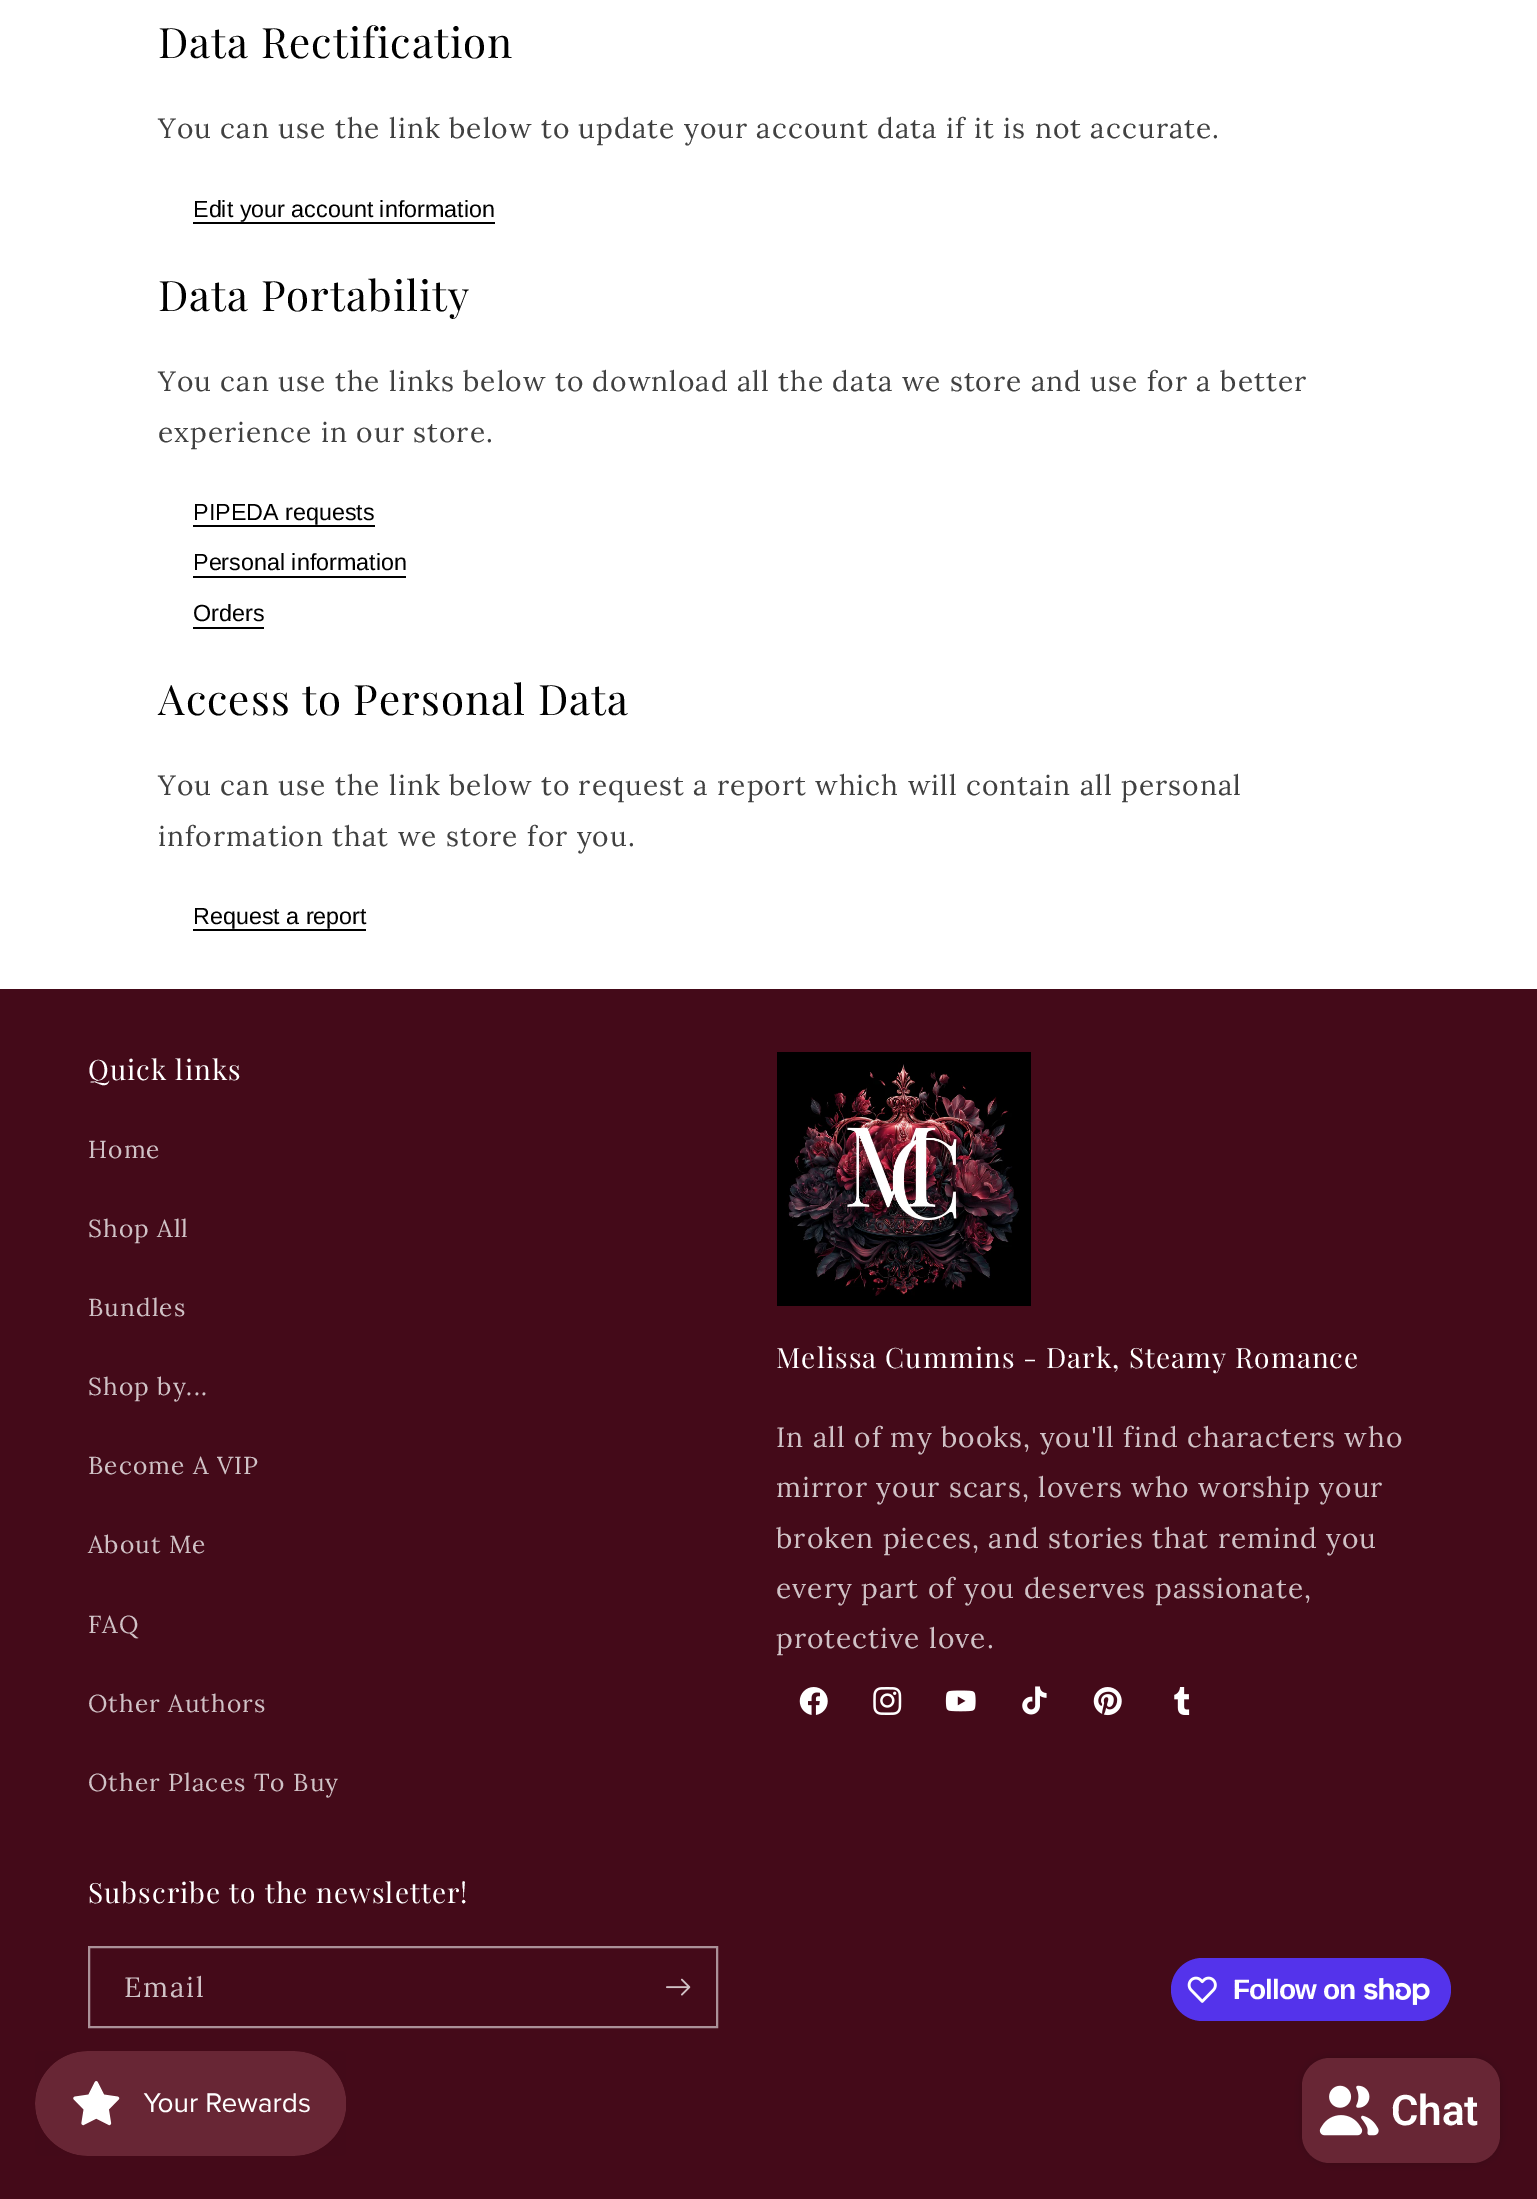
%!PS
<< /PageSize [1537 2199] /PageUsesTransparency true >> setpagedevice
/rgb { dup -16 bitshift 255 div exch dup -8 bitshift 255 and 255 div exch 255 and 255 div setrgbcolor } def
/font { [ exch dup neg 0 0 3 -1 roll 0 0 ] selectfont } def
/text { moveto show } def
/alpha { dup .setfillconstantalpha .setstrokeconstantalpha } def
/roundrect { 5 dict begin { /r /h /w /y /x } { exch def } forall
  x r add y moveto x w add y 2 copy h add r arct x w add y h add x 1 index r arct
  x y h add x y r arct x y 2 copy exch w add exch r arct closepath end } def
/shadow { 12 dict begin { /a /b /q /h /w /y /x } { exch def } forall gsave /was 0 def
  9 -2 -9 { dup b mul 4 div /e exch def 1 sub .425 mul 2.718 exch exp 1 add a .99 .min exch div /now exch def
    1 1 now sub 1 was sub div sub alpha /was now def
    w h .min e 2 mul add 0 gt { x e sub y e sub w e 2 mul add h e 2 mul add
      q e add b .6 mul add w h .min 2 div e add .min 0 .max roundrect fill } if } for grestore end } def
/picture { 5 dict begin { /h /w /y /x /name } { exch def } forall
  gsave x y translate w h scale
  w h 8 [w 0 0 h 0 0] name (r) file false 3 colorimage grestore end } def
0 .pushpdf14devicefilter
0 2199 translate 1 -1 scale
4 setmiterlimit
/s1 { /LiberationSans-Regular 23.3 font 16#000000 rgb } def
/s2 { /Roboto-SemiBold 42 font 16#FFFFFF rgb } def
16#FFFFFF rgb
0 0 1537 2199 rectfill
/PlayfairDisplay-Regular 42 font
16#000000 rgb
158 58 moveto 1.05 0 (Data Rectification) ashow
/Lora-Regular 28 font
16#404040 rgb
158 138 moveto 1.05 0 (You can use the link below to update your account data if it is not accurate.) ashow
16#000000 rgb
193 222 302 2 rectfill
s1
(Edit your account information) 193 217 text
/PlayfairDisplay-Regular 42 font
158 311 moveto 1.05 0 (Data Portability) ashow
/Lora-Regular 28 font
16#404040 rgb
158 391 moveto 1.05 0 (You can use the links below to download all the data we store and use for a better) ashow
158 442 moveto 1.05 0 (experience in our store.) ashow
16#000000 rgb
193 525 182 2 rectfill
s1
(PIPEDA requests) 193 520 text
193 576 213 2 rectfill
(Personal information) 193 570 text
193 627 71 2 rectfill
(Orders) 193 621 text
/PlayfairDisplay-Regular 42 font
158 715 moveto 1.05 0 (Access to Personal Data) ashow
/Lora-Regular 28 font
16#404040 rgb
158 795 moveto 1.05 0 (You can use the link below to request a report which will contain all personal) ashow
158 846 moveto 1.05 0 (information that we store for you.) ashow
16#000000 rgb
193 929 173 2 rectfill
s1
(Request a report) 193 924 text
16#440A19 rgb
0 989 1537 1210 rectfill
/PlayfairDisplay-Regular 28 font
16#FFFFFF rgb
88 1080 moveto 1.05 0 (Quick links) ashow
/Lora-Regular 24.5 font
16#D0C2C6 rgb
88 1158 moveto 1.05 0 (Home) ashow
88 1237 moveto 1.05 0 (Shop All) ashow
88 1316 moveto 1.05 0 (Bundles) ashow
88 1395 moveto 1.05 0 (Shop by...) ashow
88 1474 moveto 1.05 0 (Become A VIP) ashow
88 1553 moveto 1.05 0 (About Me) ashow
88 1633 moveto 1.05 0 (FAQ) ashow
88 1712 moveto 1.05 0 (Other Authors) ashow
88 1791 moveto 1.05 0 (Other Places To Buy) ashow
(pic1.raw) 777 1052 254 254 picture
/PlayfairDisplay-Regular 28 font
16#FFFFFF rgb
776 1368 moveto 1.05 0 (Melissa Cummins - Dark, Steamy Romance) ashow
/Lora-Regular 28 font
16#D0C2C6 rgb
776 1447 moveto 1.05 0 (In all of my books, you'll find characters who) ashow
776 1497 moveto 1.05 0 (mirror your scars, lovers who worship your) ashow
776 1548 moveto 1.05 0 (broken pieces, and stories that remind you) ashow
776 1598 moveto 1.05 0 (every part of you deserves passionate,) ashow
776 1648 moveto 1.05 0 (protective love.) ashow
(pic2.raw) 799 1687 29 28 picture
(pic3.raw) 873 1687 29 28 picture
(pic4.raw) 945 1690 31 22 picture
(pic5.raw) 1022 1686 25 29 picture
(pic6.raw) 1093 1687 29 29 picture
(pic7.raw) 1174 1687 16 28 picture
/PlayfairDisplay-Regular 28 font
16#FFFFFF rgb
88 1903 moveto 1.05 0 (Subscribe to the newsletter!) ashow
16#AB9198 rgb
2 setlinewidth
89 1947 628 80 rectstroke
/Lora-Regular 28 font
16#D0C2C6 rgb
124 1997 moveto 1.75 0 (Email) ashow
(pic8.raw) 666 1978 25 18 picture
16#5433EB rgb
1171 1958 280 63 31.5 roundrect fill
(pic9.raw) 1187 1976 30 27 picture
/LiberationSans-Bold 28 font
16#FFFFFF rgb
1233 1999 moveto -0.9 0 (Follow on) ashow
(pic10.raw) 1364 1978 66 27 picture
(pic11.raw) 35 2051 311 105 picture
16#000000 rgb
1302 2058 198 105 28 4.5 0.15 shadow
16#682635 rgb
1302 2058 198 105 28 roundrect fill
(pic12.raw) 1319 2085 60 51 picture
s2
(Chat) 1391 2125 text
.poppdf14devicefilter showpage
